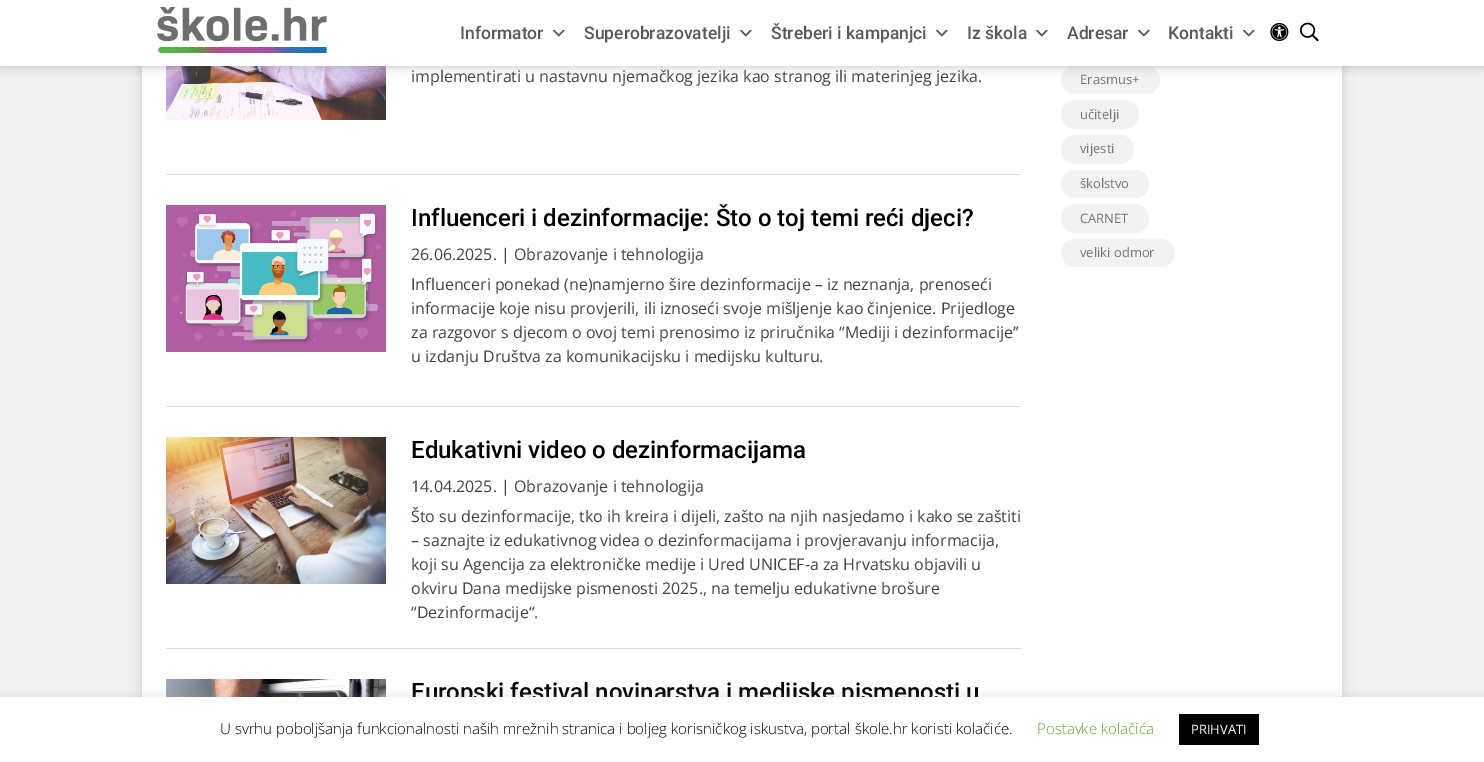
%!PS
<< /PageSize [1484 762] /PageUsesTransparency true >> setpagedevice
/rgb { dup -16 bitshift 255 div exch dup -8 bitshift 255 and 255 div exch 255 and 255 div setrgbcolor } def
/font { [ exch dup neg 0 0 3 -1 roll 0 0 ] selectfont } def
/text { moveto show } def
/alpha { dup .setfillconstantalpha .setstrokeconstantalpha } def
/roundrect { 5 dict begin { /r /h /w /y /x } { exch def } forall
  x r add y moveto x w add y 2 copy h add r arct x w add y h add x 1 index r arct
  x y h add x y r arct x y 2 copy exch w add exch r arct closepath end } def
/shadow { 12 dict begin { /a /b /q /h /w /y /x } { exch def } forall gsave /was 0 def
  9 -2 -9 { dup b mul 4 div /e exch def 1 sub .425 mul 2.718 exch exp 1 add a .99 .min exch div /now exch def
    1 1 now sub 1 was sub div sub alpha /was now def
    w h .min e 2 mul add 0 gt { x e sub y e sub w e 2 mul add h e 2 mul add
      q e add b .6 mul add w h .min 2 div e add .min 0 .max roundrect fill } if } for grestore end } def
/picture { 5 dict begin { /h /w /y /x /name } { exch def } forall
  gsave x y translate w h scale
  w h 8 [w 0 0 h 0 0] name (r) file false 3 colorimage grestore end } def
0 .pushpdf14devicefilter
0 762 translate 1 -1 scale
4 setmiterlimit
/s1 { /Roboto-Medium 17.5 font 16#595959 rgb } def
/s2 { /OpenSans-Regular 16 font 16#424242 rgb } def
/s3 { /Roboto-Medium 24 font 16#000000 rgb } def
/s4 { /OpenSans-Regular 13 font 16#737473 rgb } def
/s5 { /OpenSans-Light 15 font 16#000000 rgb } def
/s6 { /OpenSans-Light 15 font 16#62A329 rgb } def
/s7 { /OpenSans-Regular 13 font 16#FFFFFF rgb } def
16#F2F2F2 rgb
0 0 1484 762 rectfill
16#000000 rgb
142 -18 1200 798 0 6 0.15 shadow
16#FFFFFF rgb
142 66 1200 631 rectfill
(pic5.raw) 166 66 220 54 picture
16#F2F2F2 rgb
1061 66 99 28 14 roundrect fill
16#000000 rgb
0 0 1484 66 0 5 0.25 shadow
16#FFFFFF rgb
0 0 1484 66 rectfill
(pic1.raw) 157 7 170 46 picture
s1
(Informator) 460 39 text
(pic2.raw) 552 29 13 8 picture
(Superobrazovatelji) 584 39 text
(pic2.raw) 739 29 13 8 picture
(Štreberi i kampanjci) 771 39 text
(pic2.raw) 935 29 13 8 picture
(Iz škola) 967 39 text
(pic2.raw) 1035 29 13 8 picture
(Adresar) 1067 39 text
(pic2.raw) 1137 29 13 8 picture
(Kontakti) 1168 39 text
(pic2.raw) 1242 29 13 8 picture
(pic3.raw) 1270 23 19 18 picture
(pic4.raw) 1300 22 19 20 picture
16#D9DADA rgb
166 174 855 1 rectfill
s2
(implementirati u nastavnu njemačkog jezika kao stranog ili materinjeg jezika.) 411 82 text
16#D9DADA rgb
166 406 855 1 rectfill
(pic6.raw) 166 205 220 147 picture
s3
(Influenceri i dezinformacije: Što o toj temi reći djeci?) 411 226 text
s2
(26.06.2025. | Obrazovanje i tehnologija) 411 260 text
(Influenceri ponekad \(ne\)namjerno šire dezinformacije – iz neznanja, prenoseći) 411 290 text
(informacije koje nisu provjerili, ili iznoseći svoje mišljenje kao činjenice. Prijedloge) 411 314 text
(za razgovor s djecom o ovoj temi prenosimo iz priručnika “Mediji i dezinformacije”) 411 338 text
(u izdanju Društva za komunikacijsku i medijsku kulturu.) 411 362 text
16#D9DADA rgb
166 648 855 1 rectfill
(pic7.raw) 166 437 220 147 picture
s3
(Edukativni video o dezinformacijama) 411 458 text
s2
(14.04.2025. | Obrazovanje i tehnologija) 411 492 text
(Što su dezinformacije, tko ih kreira i dijeli, zašto na njih nasjedamo i kako se zaštiti) 411 522 text
(– saznajte iz edukativnog videa o dezinformacijama i provjeravanju informacija,) 411 546 text
(koji su Agencija za elektroničke medije i Ured UNICEF-a za Hrvatsku objavili u) 411 570 text
(okviru Dana medijske pismenosti 2025., na temelju edukativne brošure) 411 594 text
(“Dezinformacije“.) 411 618 text
(pic8.raw) 166 679 220 18 picture
s3
(Europski festival novinarstva i medijske pismenosti u) 411 700 text
s4
(Erasmus+) 1080 84 text
16#F2F2F2 rgb
1061 100 78 29 14.5 roundrect fill
s4
(učitelji) 1080 119 text
16#F2F2F2 rgb
1061 135 73 29 14.5 roundrect fill
s4
(vijesti) 1080 153 text
16#F2F2F2 rgb
1061 170 88 28 14 roundrect fill
s4
(školstvo) 1080 188 text
16#F2F2F2 rgb
1061 204 88 29 14.5 roundrect fill
s4
(CARNET) 1080 223 text
16#F2F2F2 rgb
1061 239 114 28 14 roundrect fill
s4
(veliki odmor) 1080 257 text
16#ACABAB rgb
0 696 1484 65 0 5 0.3 shadow
16#FFFFFF rgb
0 697 1484 65 rectfill
s5
(U svrhu poboljšanja funkcionalnosti naših mrežnih stranica i boljeg korisničkog iskustva, portal škole.hr koristi kolačiće.) 220 734 text
s6
(Postavke kolačića) 1037 734 text
16#000000 rgb
1179 714 80 31 rectfill
s7
(PRIHVATI) 1191 734 text
.poppdf14devicefilter showpage
